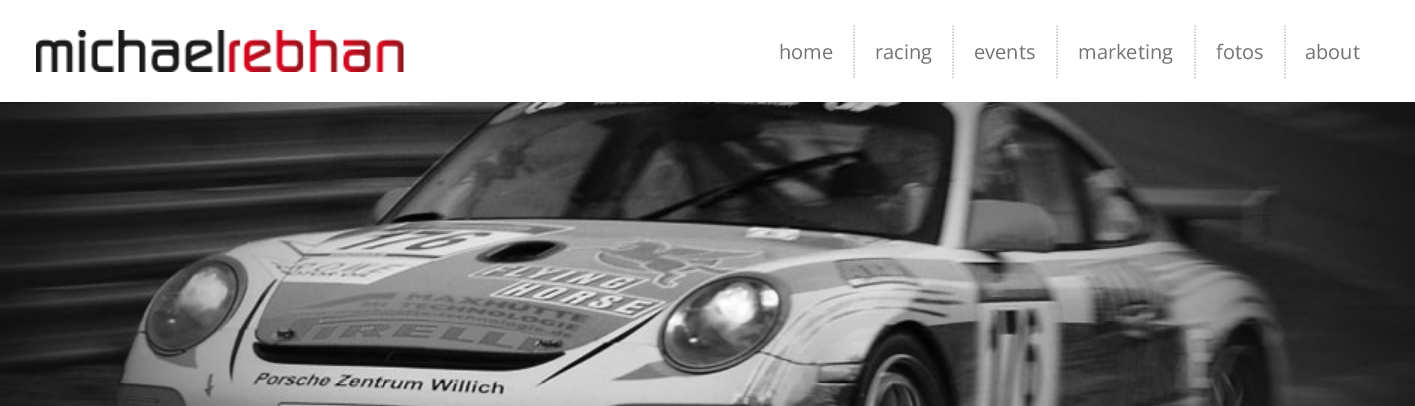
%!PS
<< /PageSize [1415 406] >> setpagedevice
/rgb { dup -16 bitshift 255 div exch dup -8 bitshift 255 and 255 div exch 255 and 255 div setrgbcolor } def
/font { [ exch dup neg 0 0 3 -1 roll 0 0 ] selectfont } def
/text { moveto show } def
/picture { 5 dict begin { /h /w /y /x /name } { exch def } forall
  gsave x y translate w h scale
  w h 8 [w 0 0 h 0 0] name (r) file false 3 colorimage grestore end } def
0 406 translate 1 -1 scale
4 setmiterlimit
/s1 { /OpenSans-Regular 20 font 16#737373 rgb } def
16#FFFFFF rgb
0 0 1415 406 rectfill
(pic1.raw) 36 30 368 42 picture
16#C8C8C8 rgb
1.5 setlinewidth
[1.5 1.5] 0 setdash
854 25.5 moveto 854 79.5 lineto stroke
s1
(home) 779 59 text
16#C8C8C8 rgb
953 25.5 moveto 953 79.5 lineto stroke
s1
(racing) 875 59 text
16#C8C8C8 rgb
1057 25.5 moveto 1057 79.5 lineto stroke
s1
(events) 974 59 text
16#C8C8C8 rgb
1195 25.5 moveto 1195 79.5 lineto stroke
s1
(marketing) 1078 59 text
16#C8C8C8 rgb
1285 25.5 moveto 1285 79.5 lineto stroke
s1
(fotos) 1216 59 text
(about) 1305 59 text
(pic2.raw) 0 102 1415 304 picture
showpage
